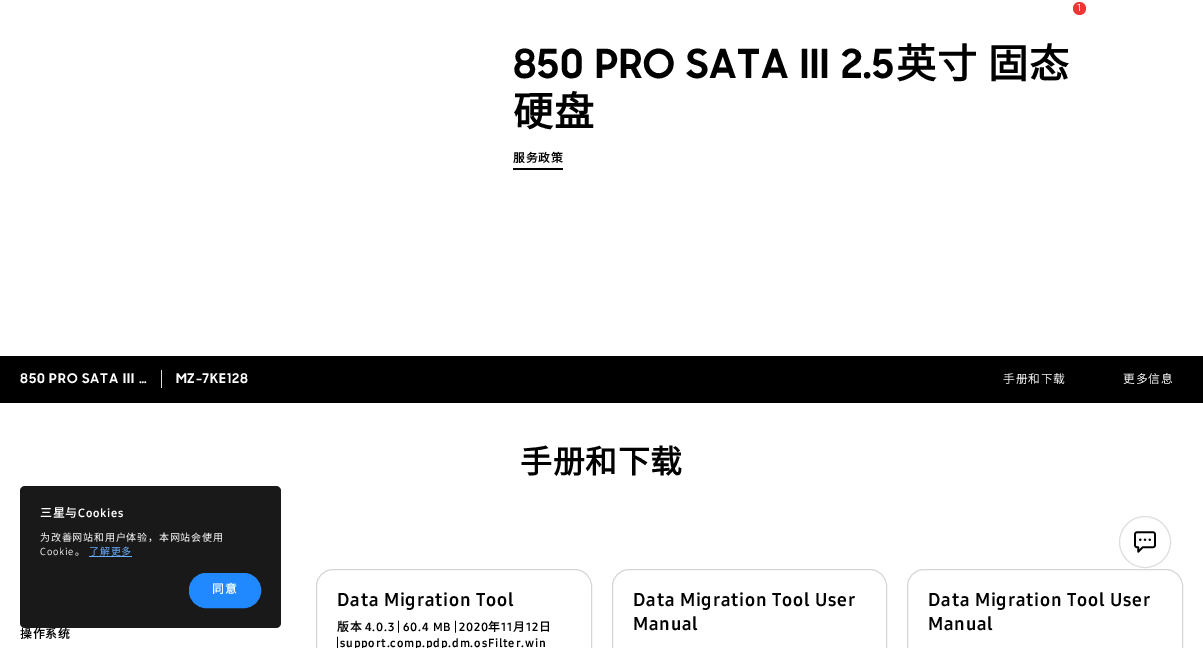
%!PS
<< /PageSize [1203 648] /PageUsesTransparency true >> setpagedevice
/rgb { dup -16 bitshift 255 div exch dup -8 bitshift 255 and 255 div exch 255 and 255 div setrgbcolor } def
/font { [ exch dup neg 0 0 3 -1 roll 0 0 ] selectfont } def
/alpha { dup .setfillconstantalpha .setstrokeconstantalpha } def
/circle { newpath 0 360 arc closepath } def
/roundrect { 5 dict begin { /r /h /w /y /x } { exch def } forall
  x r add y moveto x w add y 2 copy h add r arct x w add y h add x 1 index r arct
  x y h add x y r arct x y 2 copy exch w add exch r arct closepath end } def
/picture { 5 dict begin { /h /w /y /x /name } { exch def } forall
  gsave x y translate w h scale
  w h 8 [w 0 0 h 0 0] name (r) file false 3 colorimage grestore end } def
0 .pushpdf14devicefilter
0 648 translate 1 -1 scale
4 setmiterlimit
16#FFFFFF rgb
0 0 1203 648 rectfill
16#EF3434 rgb
1079.5 8.5 6.5 circle fill
/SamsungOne-Regular 10 font
16#FFFFFF rgb
1077 11 moveto 0.8 0 (1) ashow
/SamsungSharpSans-Bold 40 font
16#000000 rgb
513 78 moveto 0.8 0 (850 PRO SATA III 2.5) ashow
/NotoSansCJKSC-Bold 40 font
896 78 moveto 0.8 0 (英寸) ashow
988 78 moveto 0.8 0 (固态) ashow
513 126 moveto 0.8 0 (硬盘) ashow
/NotoSansCJKSC-Bold 11.75 font
513 162 moveto 0.8 0 (服务政策) ashow
513 168 50 2 rectfill
0 356 1203 47 rectfill
/SamsungSharpSans-Bold 13.4 font
16#FFFFFF rgb
20 383 moveto 0.8 0 (850 PRO SATA III …) ashow
16#DDDDDD rgb
161 370 1 18 rectfill
16#FFFFFF rgb
176 383 moveto 0.8 0 (MZ-7KE128) ashow
/NotoSansCJKSC-Regular 11.75 font
1003 383 moveto 0.8 0 (手册和下载) ashow
1123 383 moveto 0.8 0 (更多信息) ashow
/NotoSansCJKSC-Bold 31.75 font
16#000000 rgb
520 473 moveto 0.8 0 (手册和下载) ashow
/NotoSansCJKSC-Bold 11.75 font
20 638 moveto 0.8 0 (操作系统) ashow
16#D6D6D6 rgb
316.5 569.5 275 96 16.5 roundrect stroke
/SamsungOne-Bold 18.4 font
16#000000 rgb
337 606 moveto 0.8 0 (Data Migration Tool) ashow
/NotoSansCJKSC-Bold 11.75 font
337 631 moveto 0.8 0 (版本) ashow
/SamsungOne-Bold 11.75 font
365 631 moveto 0.8 0 (4.0.3) ashow
397 630 moveto 0.8 0 (|) ashow
403 631 moveto 0.8 0 (60.4 MB) ashow
454 630 moveto 0.8 0 (|) ashow
459 631 moveto 0.8 0 (2020) ashow
/NotoSansCJKSC-Bold 11.75 font
488 631 moveto 0.8 0 (年) ashow
/SamsungOne-Bold 11.75 font
501 631 moveto 0.8 0 (11) ashow
/NotoSansCJKSC-Bold 11.75 font
513 631 moveto 0.8 0 (月) ashow
/SamsungOne-Bold 11.75 font
526 631 moveto 0.8 0 (12) ashow
/NotoSansCJKSC-Bold 11.75 font
539 631 moveto 0.8 0 (日) ashow
/SamsungOne-Bold 11.75 font
336 646 moveto 0.8 0 (|) ashow
340 647 moveto 0.8 0 (support.comp.pdp.dm.osFilter.win) ashow
16#D6D6D6 rgb
612.5 569.5 274 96 16.5 roundrect stroke
/SamsungOne-Bold 18.4 font
16#000000 rgb
633 606 moveto 0.8 0 (Data Migration Tool User) ashow
633 630 moveto 0.8 0 (Manual) ashow
16#D6D6D6 rgb
907.5 569.5 275 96 16.5 roundrect stroke
16#000000 rgb
928 606 moveto 0.8 0 (Data Migration Tool User) ashow
928 630 moveto 0.8 0 (Manual) ashow
16#DDDDDD rgb
1145 542 25.5 circle stroke
(pic1.raw) 1134 531 22 22 picture
0.9 alpha
16#000000 rgb
20 486 261 142 5 roundrect fill
/NotoSansCJKSC-Bold 11.75 font
1 alpha
16#FFFFFF rgb
40 517 moveto 0.8 0 (三星与) ashow
/SamsungOne-Bold 11.75 font
78 517 moveto 0.8 0 (Cookies) ashow
/NotoSansCJKSC-Regular 10 font
40 541 moveto 0.8 0 (为改善网站和用户体验，本网站会使用) ashow
/SamsungOne-Regular 10 font
40 555 moveto 0.8 0 (Cookie) ashow
/NotoSansCJKSC-Regular 10 font
75 555 moveto 0.8 0 (。) ashow
16#68AEFF rgb
89 555 moveto 0.8 0 (了解更多) ashow
89 556 43 1 rectfill
16#2189FF rgb
189.5 573.5 71 34 16.5 roundrect gsave fill grestore
stroke
/NotoSansCJKSC-Bold 11.75 font
16#FFFFFF rgb
212 593 moveto 0.8 0 (同意) ashow
.poppdf14devicefilter showpage
